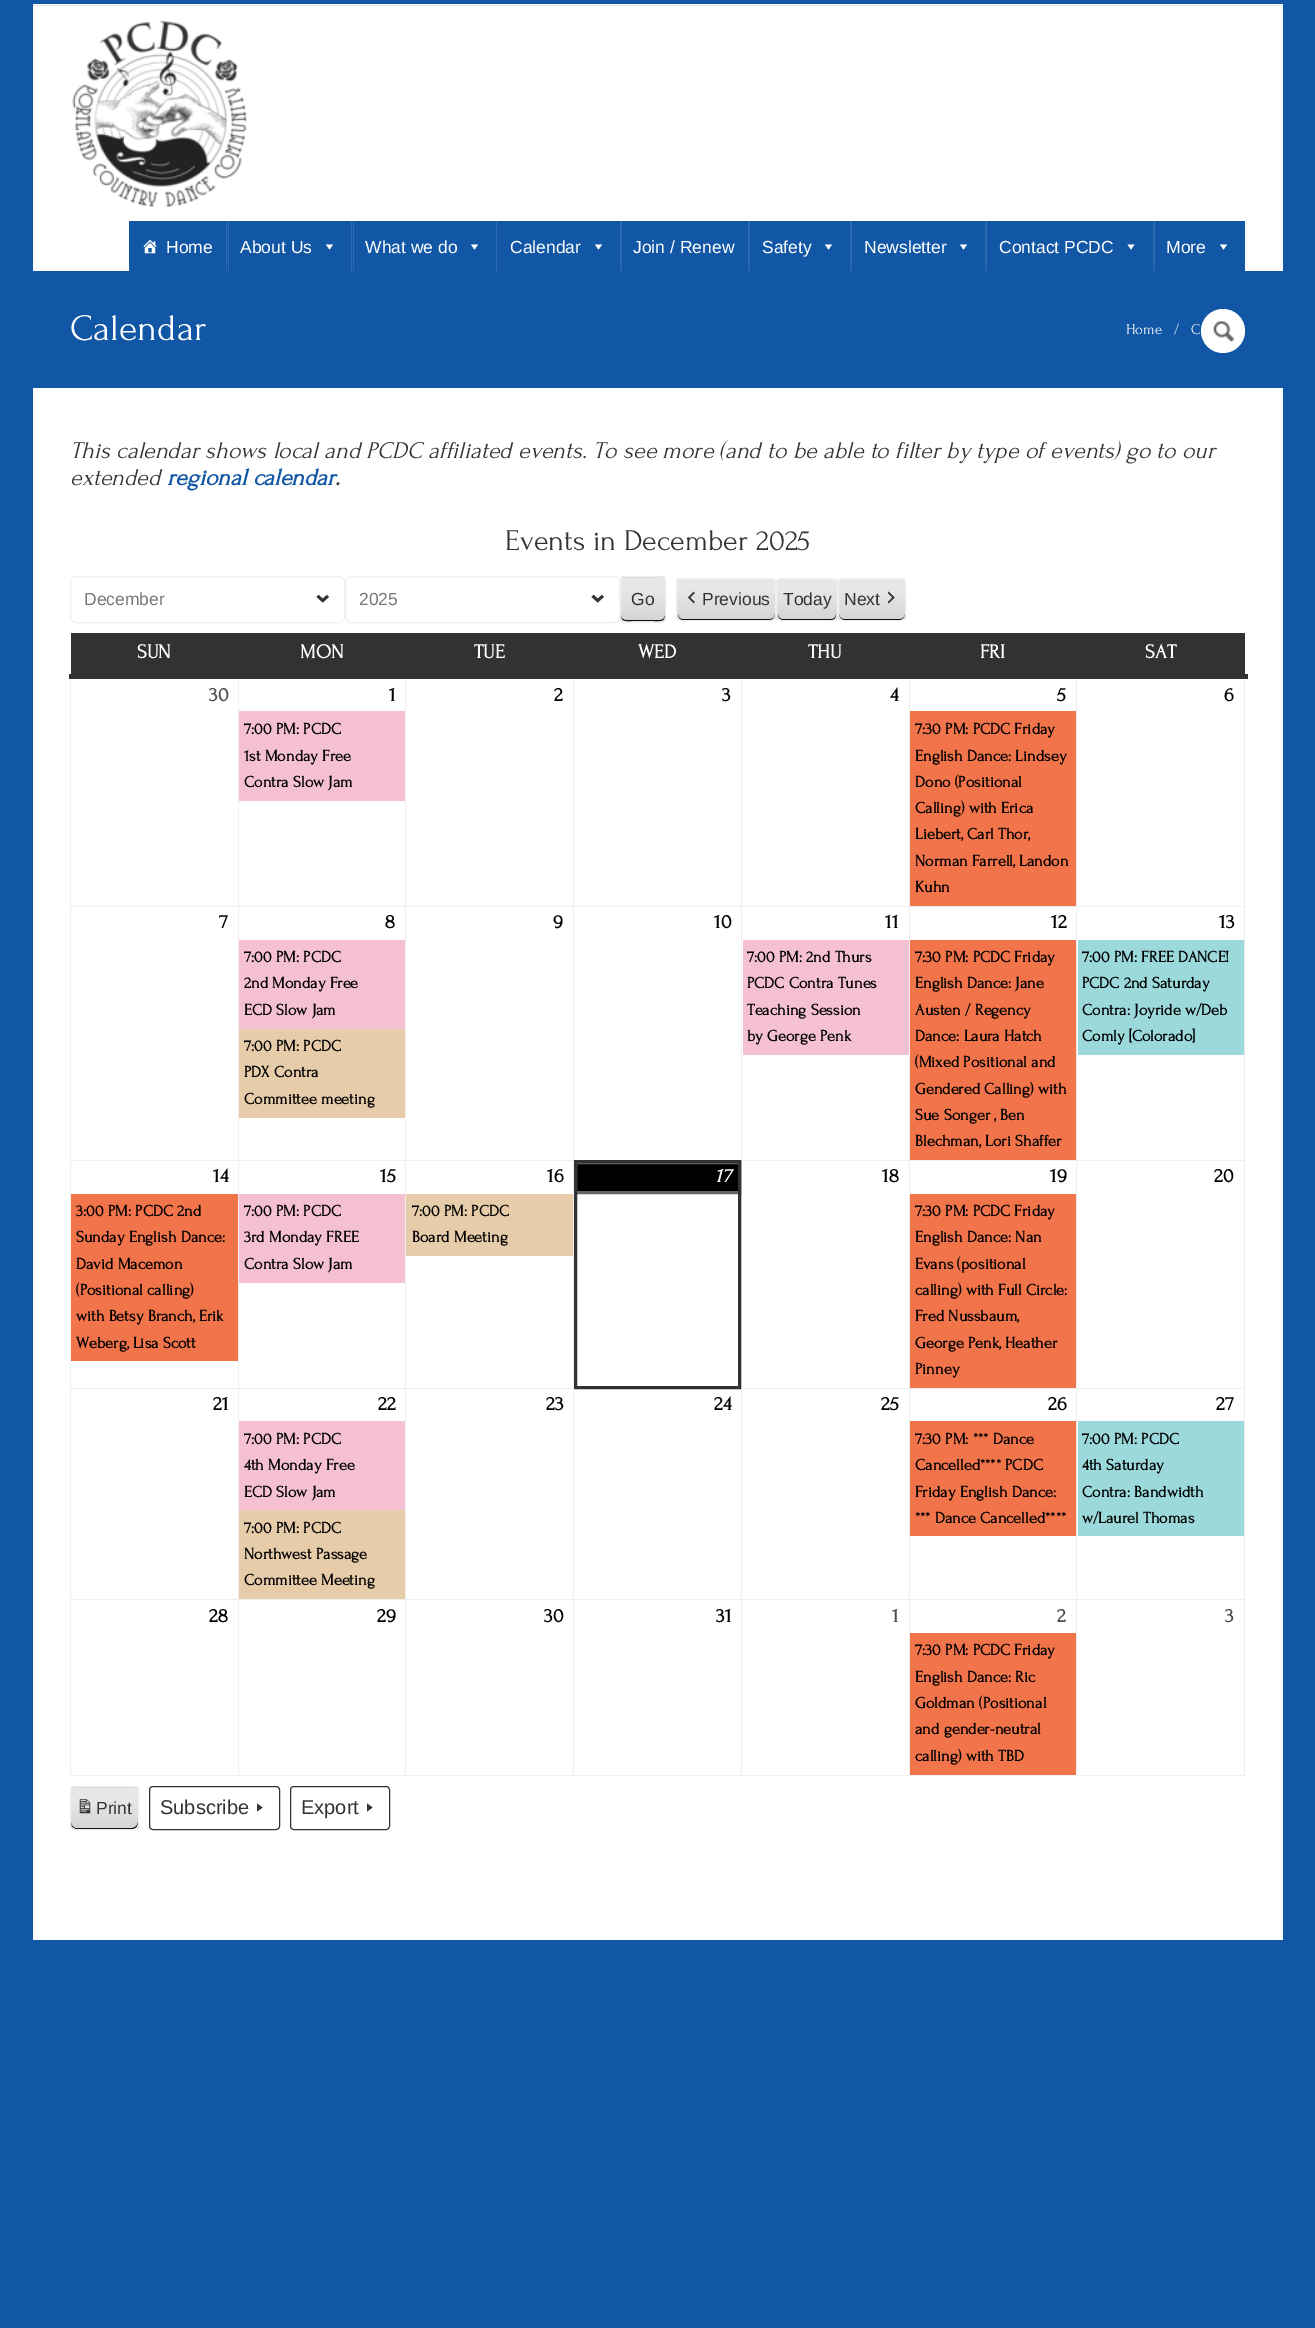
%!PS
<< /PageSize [1315 2328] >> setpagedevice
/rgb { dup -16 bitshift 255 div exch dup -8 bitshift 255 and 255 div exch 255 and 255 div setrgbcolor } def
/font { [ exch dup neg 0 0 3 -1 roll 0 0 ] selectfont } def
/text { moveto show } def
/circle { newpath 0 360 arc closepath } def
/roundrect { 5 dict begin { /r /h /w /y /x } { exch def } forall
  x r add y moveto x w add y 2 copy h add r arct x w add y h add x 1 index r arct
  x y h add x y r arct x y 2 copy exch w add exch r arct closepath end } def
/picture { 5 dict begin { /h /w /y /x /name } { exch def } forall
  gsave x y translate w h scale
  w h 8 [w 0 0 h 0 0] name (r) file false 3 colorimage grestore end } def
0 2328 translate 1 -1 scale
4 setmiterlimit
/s1 { /LiberationSans-Regular 17.5 font 16#FFFFFF rgb } def
/s2 { /Forum-Regular 37.5 font 16#FFFFFF rgb } def
/s3 { /Forum-Regular 15 font 16#FFFFFF rgb } def
/s4 { /Forum-Italic 24 font 16#333333 rgb } def
/s5 { /Forum-BoldItalic 24 font 16#1257A5 rgb } def
/s6 { /Forum-BoldItalic 24 font 16#333333 rgb } def
/s7 { /Forum-Regular 30 font 16#333333 rgb } def
/s8 { /LiberationSans-Regular 17.5 font 16#777777 rgb } def
/s9 { /LiberationSans-Regular 17.5 font 16#333333 rgb } def
/s10 { /Forum-Bold 20 font 16#FFFFFF rgb } def
/s11 { /Forum-Bold 20 font 16#4D4D4D rgb } def
/s12 { /Forum-Bold 20 font 16#000000 rgb } def
/s13 { /Forum-Bold 16.25 font 16#000000 rgb } def
/s14 { /Forum-BoldItalic 20 font 16#FFFFFF rgb } def
/s15 { /LiberationSans-Regular 20 font 16#333333 rgb } def
16#1257A5 rgb
0 0 1315 2328 rectfill
16#FFFFFF rgb
33 4 1250 1936 rectfill
16#E5E5E5 rgb
33 5 1250 1 rectfill
(pic1.raw) 72 20 175 188 picture
16#1257A5 rgb
129 221 1116 50 rectfill
(pic2.raw) 143 239 14 15 picture
s1
(Home) 166 253 text
16#2A68AE rgb
228 221 1 50 rectfill
226 221 1 50 rectfill
s1
(About Us) 240 253 text
333 244.5 moveto 329.5 249.5 lineto 326 244.5 lineto closepath fill
16#2A68AE rgb
353 221 1 50 rectfill
351 221 1 50 rectfill
s1
(What we do) 365 253 text
478 244.5 moveto 474.5 249.5 lineto 471 244.5 lineto closepath fill
16#2A68AE rgb
496 221 1 50 rectfill
s1
(Calendar) 510 253 text
602 244.5 moveto 598.5 249.5 lineto 595 244.5 lineto closepath fill
16#2A68AE rgb
620 221 2 50 rectfill
s1
(Join / Renew) 633 253 text
16#2A68AE rgb
748 221 2 50 rectfill
s1
(Safety) 762 253 text
832 244.5 moveto 828.5 249.5 lineto 825 244.5 lineto closepath fill
16#2A68AE rgb
850 221 2 50 rectfill
s1
(Newsletter) 864 253 text
967 244.5 moveto 963.5 249.5 lineto 960 244.5 lineto closepath fill
16#2A68AE rgb
985 221 2 50 rectfill
s1
(Contact PCDC) 999 253 text
1134.5 244.5 moveto 1131 249.5 lineto 1127.5 244.5 lineto closepath fill
16#2A68AE rgb
1153 221 2 50 rectfill
s1
(More) 1166 253 text
1227 244.5 moveto 1223.5 249.5 lineto 1220 244.5 lineto closepath fill
16#1257A5 rgb
33 271 1250 117 rectfill
16#FFFFFF rgb
1223 331 22 circle fill
(pic3.raw) 1213 321 21 21 picture
s2
(Calendar) 70 340 text
s3
(Home) 1126 334 text
(/   C) 1174 334 text
s4
(This calendar shows local and PCDC affiliated events.) 70 458 text
(To see more \(and to be able to filter by type of events\) go to our) 593 458 text
(extended) 70 485 text
s5
(regional calendar) 167 485 text
s6
(.) 335 485 text
s7
(Events in December 2025) 505 550 text
(pic4.raw) 316 594 14 9 picture
16#EFEFEF rgb
70.5 576.5 274 46 5.5 roundrect stroke
s8
(December) 84 605 text
(pic4.raw) 591 594 14 9 picture
16#EFEFEF rgb
345.5 576.5 274 46 5.5 roundrect stroke
s8
(2025) 359 605 text
gsave
620 576 46 47 6 roundrect clip newpath
gsave 620 576 moveto 666 576 lineto 666 578 lineto 620 578 lineto closepath clip newpath
<< /ShadingType 2 /ColorSpace /DeviceRGB /Coords [643 578 643 534] /Extend [true true] /Function << /FunctionType 3 /Domain [0 1] /Functions [<< /FunctionType 2 /Domain [0 1] /C0 [0.831 0.831 0.831] /C1 [0.906 0.906 0.906] /N 1 >> << /FunctionType 2 /Domain [0 1] /C0 [0.906 0.906 0.906] /C1 [0.906 0.906 0.906] /N 1 >>] /Bounds [0.7] /Encode [0 1 0 1] >> >> shfill grestore
gsave 620 578 moveto 666 578 lineto 666 621 lineto 620 621 lineto closepath clip newpath
<< /ShadingType 2 /ColorSpace /DeviceRGB /Coords [643 621 643 578] /Extend [true true] /Function << /FunctionType 3 /Domain [0 1] /Functions [<< /FunctionType 2 /Domain [0 1] /C0 [0.831 0.831 0.831] /C1 [0.906 0.906 0.906] /N 1 >> << /FunctionType 2 /Domain [0 1] /C0 [0.906 0.906 0.906] /C1 [0.906 0.906 0.906] /N 1 >>] /Bounds [0.7] /Encode [0 1 0 1] >> >> shfill grestore
gsave 620 621 moveto 666 621 lineto 666 623 lineto 620 623 lineto closepath clip newpath
<< /ShadingType 2 /ColorSpace /DeviceRGB /Coords [643 665 643 621] /Extend [true true] /Function << /FunctionType 3 /Domain [0 1] /Functions [<< /FunctionType 2 /Domain [0 1] /C0 [0.831 0.831 0.831] /C1 [0.906 0.906 0.906] /N 1 >> << /FunctionType 2 /Domain [0 1] /C0 [0.906 0.906 0.906] /C1 [0.906 0.906 0.906] /N 1 >>] /Bounds [0.7] /Encode [0 1 0 1] >> >> shfill grestore
grestore
16#0F0F0F rgb
621 615 moveto 621 622 626 621 632 621 curveto 654 621 lineto 660 621 665 622 665 615 curveto 665 618 663 620 660 620 curveto 626 620 lineto 623 620 621 618 621 615 curveto closepath fill
16#EFEFEF rgb
620.5 576.5 45 46 5.5 roundrect stroke
s9
(Go) 631 605 text
gsave
676 578 100 43 6 roundrect clip newpath
gsave 676 579 moveto 776 579 lineto 776 620 lineto 676 620 lineto closepath clip newpath
<< /ShadingType 2 /ColorSpace /DeviceRGB /Coords [726 620 726 579] /Extend [true true] /Function << /FunctionType 3 /Domain [0 1] /Functions [<< /FunctionType 2 /Domain [0 1] /C0 [0.831 0.831 0.831] /C1 [0.906 0.906 0.906] /N 1 >> << /FunctionType 2 /Domain [0 1] /C0 [0.906 0.906 0.906] /C1 [0.906 0.906 0.906] /N 1 >>] /Bounds [0.7] /Encode [0 1 0 1] >> >> shfill grestore
grestore
16#0F0F0F rgb
678 614 moveto 678 624 692 620 698 620 curveto 756 620 lineto 761 620 775 624 775 614 curveto 775 617 773 619 770 619 curveto 682 619 lineto 680 619 678 617 678 614 curveto closepath fill
16#EFEFEF rgb
676.5 578.5 99 42 5.5 roundrect stroke
(pic5.raw) 687 591 8 13 picture
s9
(Previous) 702 605 text
gsave
776 578 62 43 6 roundrect clip newpath
gsave 776 579 moveto 838 579 lineto 838 620 lineto 776 620 lineto closepath clip newpath
<< /ShadingType 2 /ColorSpace /DeviceRGB /Coords [807 620 807 579] /Extend [true true] /Function << /FunctionType 3 /Domain [0 1] /Functions [<< /FunctionType 2 /Domain [0 1] /C0 [0.831 0.831 0.831] /C1 [0.906 0.906 0.906] /N 1 >> << /FunctionType 2 /Domain [0 1] /C0 [0.906 0.906 0.906] /C1 [0.906 0.906 0.906] /N 1 >>] /Bounds [0.7] /Encode [0 1 0 1] >> >> shfill grestore
grestore
16#0F0F0F rgb
778 614 moveto 778 622 785 620 791 620 curveto 823 620 lineto 829 620 836 622 836 614 curveto 836 617 834 619 831 619 curveto 782 619 lineto 780 619 778 617 778 614 curveto closepath fill
16#EFEFEF rgb
776.5 578.5 61 42 5.5 roundrect stroke
s9
(Today) 783 605 text
gsave
838 578 68 43 6 roundrect clip newpath
gsave 838 579 moveto 906 579 lineto 906 620 lineto 838 620 lineto closepath clip newpath
<< /ShadingType 2 /ColorSpace /DeviceRGB /Coords [872 620 872 579] /Extend [true true] /Function << /FunctionType 3 /Domain [0 1] /Functions [<< /FunctionType 2 /Domain [0 1] /C0 [0.831 0.831 0.831] /C1 [0.906 0.906 0.906] /N 1 >> << /FunctionType 2 /Domain [0 1] /C0 [0.906 0.906 0.906] /C1 [0.906 0.906 0.906] /N 1 >>] /Bounds [0.7] /Encode [0 1 0 1] >> >> shfill grestore
grestore
16#0F0F0F rgb
839 614 moveto 839 622 847 620 853 620 curveto 891 620 lineto 897 620 905 622 905 614 curveto 905 617 903 619 900 619 curveto 844 619 lineto 841 619 839 617 839 614 curveto closepath fill
16#EFEFEF rgb
838.5 578.5 67 42 5.5 roundrect stroke
s9
(Next) 844 605 text
(pic6.raw) 887 591 8 13 picture
16#EFEFEF rgb
1076 906 169 1 rectfill
1076 1160 169 1 rectfill
1076 1388 169 1 rectfill
1076 1599 169 1 rectfill
1244 1599 1 177 rectfill
1076 1775 169 1 rectfill
1076 1599 1 177 rectfill
909 1599 169 1 rectfill
1076 1388 1 212 rectfill
909 1388 169 1 rectfill
1076 1160 1 229 rectfill
909 1160 169 1 rectfill
1076 906 1 255 rectfill
909 906 169 1 rectfill
909 1775 169 1 rectfill
909 1599 1 177 rectfill
741 1599 169 1 rectfill
909 1388 1 212 rectfill
741 1388 169 1 rectfill
909 1160 1 229 rectfill
741 1160 169 1 rectfill
909 906 1 255 rectfill
741 906 169 1 rectfill
741 1775 169 1 rectfill
741 1599 1 177 rectfill
573 1599 170 1 rectfill
741 1388 1 212 rectfill
741 1160 1 229 rectfill
741 906 1 255 rectfill
573 906 170 1 rectfill
573 1775 170 1 rectfill
573 1599 1 177 rectfill
405 1599 169 1 rectfill
573 1388 1 212 rectfill
405 1388 169 1 rectfill
573 1160 1 229 rectfill
405 1160 169 1 rectfill
573 906 1 255 rectfill
405 906 169 1 rectfill
405 1775 169 1 rectfill
405 1599 1 177 rectfill
238 1599 168 1 rectfill
405 1388 1 212 rectfill
238 1388 168 1 rectfill
405 1160 1 229 rectfill
238 1160 168 1 rectfill
405 906 1 255 rectfill
238 906 168 1 rectfill
238 1775 168 1 rectfill
238 1599 1 177 rectfill
70 1599 169 1 rectfill
238 1388 1 212 rectfill
70 1388 169 1 rectfill
238 1160 1 229 rectfill
70 1160 169 1 rectfill
238 906 1 255 rectfill
70 906 169 1 rectfill
238 676 1 232 rectfill
405 676 1 232 rectfill
573 676 1 232 rectfill
741 676 1 232 rectfill
909 676 1 232 rectfill
1076 676 1 232 rectfill
70 1775 169 1 rectfill
70 1599 1 177 rectfill
70 1388 1 212 rectfill
70 1160 1 229 rectfill
70 676 1 485 rectfill
1244 1388 1 212 rectfill
1244 1160 1 229 rectfill
1244 676 1 485 rectfill
16#313233 rgb
69 674 1179 5 rectfill
71 633 1174 41 rectfill
s10
(SUN) 137 658 text
(MON) 300 658 text
(TUE) 474 658 text
(WED) 638 658 text
(THU) 808 658 text
(FRI) 980 658 text
(SAT) 1145 658 text
s11
(30) 209 701 text
s12
(1) 389 701 text
16#F5C0D2 rgb
239 711 166 90 rectfill
s13
(7:00 PM: PCDC) 244 734 text
(1st Monday Free) 244 761 text
(Contra Slow Jam) 244 787 text
s12
(2) 554 701 text
(3) 722 701 text
(4) 890 701 text
(5) 1057 701 text
16#F2744A rgb
910 711 166 195 rectfill
s13
(7:30 PM: PCDC Friday) 915 734 text
(English Dance: Lindsey) 915 761 text
(Dono \(Positional) 915 787 text
(Calling\) with Erica) 915 813 text
(Liebert, Carl Thor,) 915 839 text
(Norman Farrell, Landon) 915 866 text
(Kuhn) 915 892 text
s12
(6) 1224 701 text
(7) 219 928 text
(8) 385 928 text
16#F5C0D2 rgb
239 940 166 89 rectfill
s13
(7:00 PM: PCDC) 244 962 text
(2nd Monday Free) 244 988 text
(ECD Slow Jam) 244 1015 text
16#E7CCAA rgb
239 1029 166 89 rectfill
s13
(7:00 PM: PCDC) 244 1051 text
(PDX Contra) 244 1077 text
(Committee meeting) 244 1104 text
s12
(9) 553 928 text
(10) 714 928 text
(11) 885 928 text
16#F5C0D2 rgb
743 940 166 115 rectfill
s13
(7:00 PM: 2nd Thurs) 747 962 text
(PCDC Contra Tunes) 747 988 text
(Teaching Session) 747 1015 text
(by George Penk) 747 1041 text
s12
(12) 1051 928 text
16#F2744A rgb
910 940 166 220 rectfill
s13
(7:30 PM: PCDC Friday) 915 962 text
(English Dance: Jane) 915 988 text
(Austen / Regency) 915 1015 text
(Dance: Laura Hatch) 915 1041 text
(\(Mixed Positional and) 915 1067 text
(Gendered Calling\) with) 915 1094 text
(Sue Songer , Ben) 915 1120 text
(Blechman, Lori Shaffer) 915 1146 text
s12
(13) 1219 928 text
16#9BD9DB rgb
1078 940 166 115 rectfill
s13
(7:00 PM: FREE DANCE!) 1082 962 text
(PCDC 2nd Saturday) 1082 988 text
(Contra: Joyride w/Deb) 1082 1015 text
(Comly [Colorado]) 1082 1041 text
s12
(14) 213 1182 text
16#F2744A rgb
71 1194 167 167 rectfill
s13
(3:00 PM: PCDC 2nd) 76 1216 text
(Sunday English Dance:) 76 1242 text
(David Macemon) 76 1269 text
(\(Positional calling\)) 76 1295 text
(with Betsy Branch, Erik) 76 1321 text
(Weberg, Lisa Scott) 76 1348 text
s12
(15) 380 1182 text
16#F5C0D2 rgb
239 1194 166 89 rectfill
s13
(7:00 PM: PCDC) 244 1216 text
(3rd Monday FREE) 244 1242 text
(Contra Slow Jam) 244 1269 text
s12
(16) 547 1182 text
16#E7CCAA rgb
406 1194 167 62 rectfill
s13
(7:00 PM: PCDC) 412 1216 text
(Board Meeting) 412 1242 text
575.5 1162.5 moveto 739.5 1162.5 lineto 739.5 1192.5 lineto 575.5 1192.5 lineto closepath gsave fill grestore
16#666666 rgb
3 setlinewidth
stroke
16#313233 rgb
575.5 1161.5 164 226 rectstroke
s14
(17) 715 1182 text
s12
(18) 882 1182 text
(19) 1050 1182 text
16#F2744A rgb
910 1194 166 194 rectfill
s13
(7:30 PM: PCDC Friday) 915 1216 text
(English Dance: Nan) 915 1242 text
(Evans \(positional) 915 1269 text
(calling\) with Full Circle:) 915 1295 text
(Fred Nussbaum,) 915 1321 text
(George Penk, Heather) 915 1348 text
(Pinney) 915 1374 text
s12
(20) 1214 1182 text
(21) 213 1410 text
(22) 378 1410 text
16#F5C0D2 rgb
239 1421 166 89 rectfill
s13
(7:00 PM: PCDC) 244 1444 text
(4th Monday Free) 244 1470 text
(ECD Slow Jam) 244 1497 text
16#E7CCAA rgb
239 1510 166 89 rectfill
s13
(7:00 PM: PCDC) 244 1533 text
(Northwest Passage) 244 1559 text
(Committee Meeting) 244 1585 text
s12
(23) 546 1410 text
(24) 714 1410 text
(25) 881 1410 text
(26) 1048 1410 text
16#F2744A rgb
910 1421 166 115 rectfill
s13
(7:30 PM: *** Dance) 915 1444 text
(Cancelled**** PCDC) 915 1470 text
(Friday English Dance:) 915 1497 text
(*** Dance Cancelled****) 915 1523 text
s12
(27) 1216 1410 text
16#9BD9DB rgb
1078 1421 166 115 rectfill
s13
(7:00 PM: PCDC) 1082 1444 text
(4th Saturday) 1082 1470 text
(Contra: Bandwidth) 1082 1497 text
(w/Laurel Thomas) 1082 1523 text
s12
(28) 209 1622 text
(29) 377 1622 text
(30) 544 1622 text
(31) 716 1622 text
s11
(1) 892 1622 text
(2) 1057 1622 text
16#F2744A rgb
910 1633 166 142 rectfill
s13
(7:30 PM: PCDC Friday) 915 1655 text
(English Dance: Ric) 915 1682 text
(Goldman \(Positional) 915 1708 text
(and gender-neutral) 915 1734 text
(calling\) with TBD) 915 1761 text
s11
(3) 1225 1622 text
gsave
70 1786 69 44 6 roundrect clip newpath
gsave 70 1786 moveto 139 1786 lineto 139 1788 lineto 70 1788 lineto closepath clip newpath
<< /ShadingType 2 /ColorSpace /DeviceRGB /Coords [104 1788 104 1746] /Extend [true true] /Function << /FunctionType 3 /Domain [0 1] /Functions [<< /FunctionType 2 /Domain [0 1] /C0 [0.831 0.831 0.831] /C1 [0.906 0.906 0.906] /N 1 >> << /FunctionType 2 /Domain [0 1] /C0 [0.906 0.906 0.906] /C1 [0.906 0.906 0.906] /N 1 >>] /Bounds [0.7] /Encode [0 1 0 1] >> >> shfill grestore
gsave 70 1788 moveto 139 1788 lineto 139 1829 lineto 70 1829 lineto closepath clip newpath
<< /ShadingType 2 /ColorSpace /DeviceRGB /Coords [104 1829 104 1788] /Extend [true true] /Function << /FunctionType 3 /Domain [0 1] /Functions [<< /FunctionType 2 /Domain [0 1] /C0 [0.831 0.831 0.831] /C1 [0.906 0.906 0.906] /N 1 >> << /FunctionType 2 /Domain [0 1] /C0 [0.906 0.906 0.906] /C1 [0.906 0.906 0.906] /N 1 >>] /Bounds [0.7] /Encode [0 1 0 1] >> >> shfill grestore
grestore
16#0F0F0F rgb
71 1822 moveto 71 1831 78 1829 86 1829 curveto 124 1829 lineto 131 1829 138 1831 138 1822 curveto 138 1825 135 1828 132 1828 curveto 76 1828 lineto 73 1828 71 1825 71 1822 curveto closepath fill
16#EFEFEF rgb
1 setlinewidth
70.5 1786.5 68 43 5.5 roundrect stroke
(pic7.raw) 79 1799 12 15 picture
s9
(Print) 96 1814 text
16#313233 rgb
149.5 1786.5 130 43 3.5 roundrect stroke
s15
(Subscribe) 160 1814 text
16#313233 rgb
257 1803.5 moveto 262.5 1807.5 lineto 257 1811.5 lineto closepath fill
290.5 1786.5 99 43 3.5 roundrect stroke
s15
(Export) 301 1814 text
16#313233 rgb
367 1803.5 moveto 372.5 1807.5 lineto 367 1811.5 lineto closepath fill
showpage
